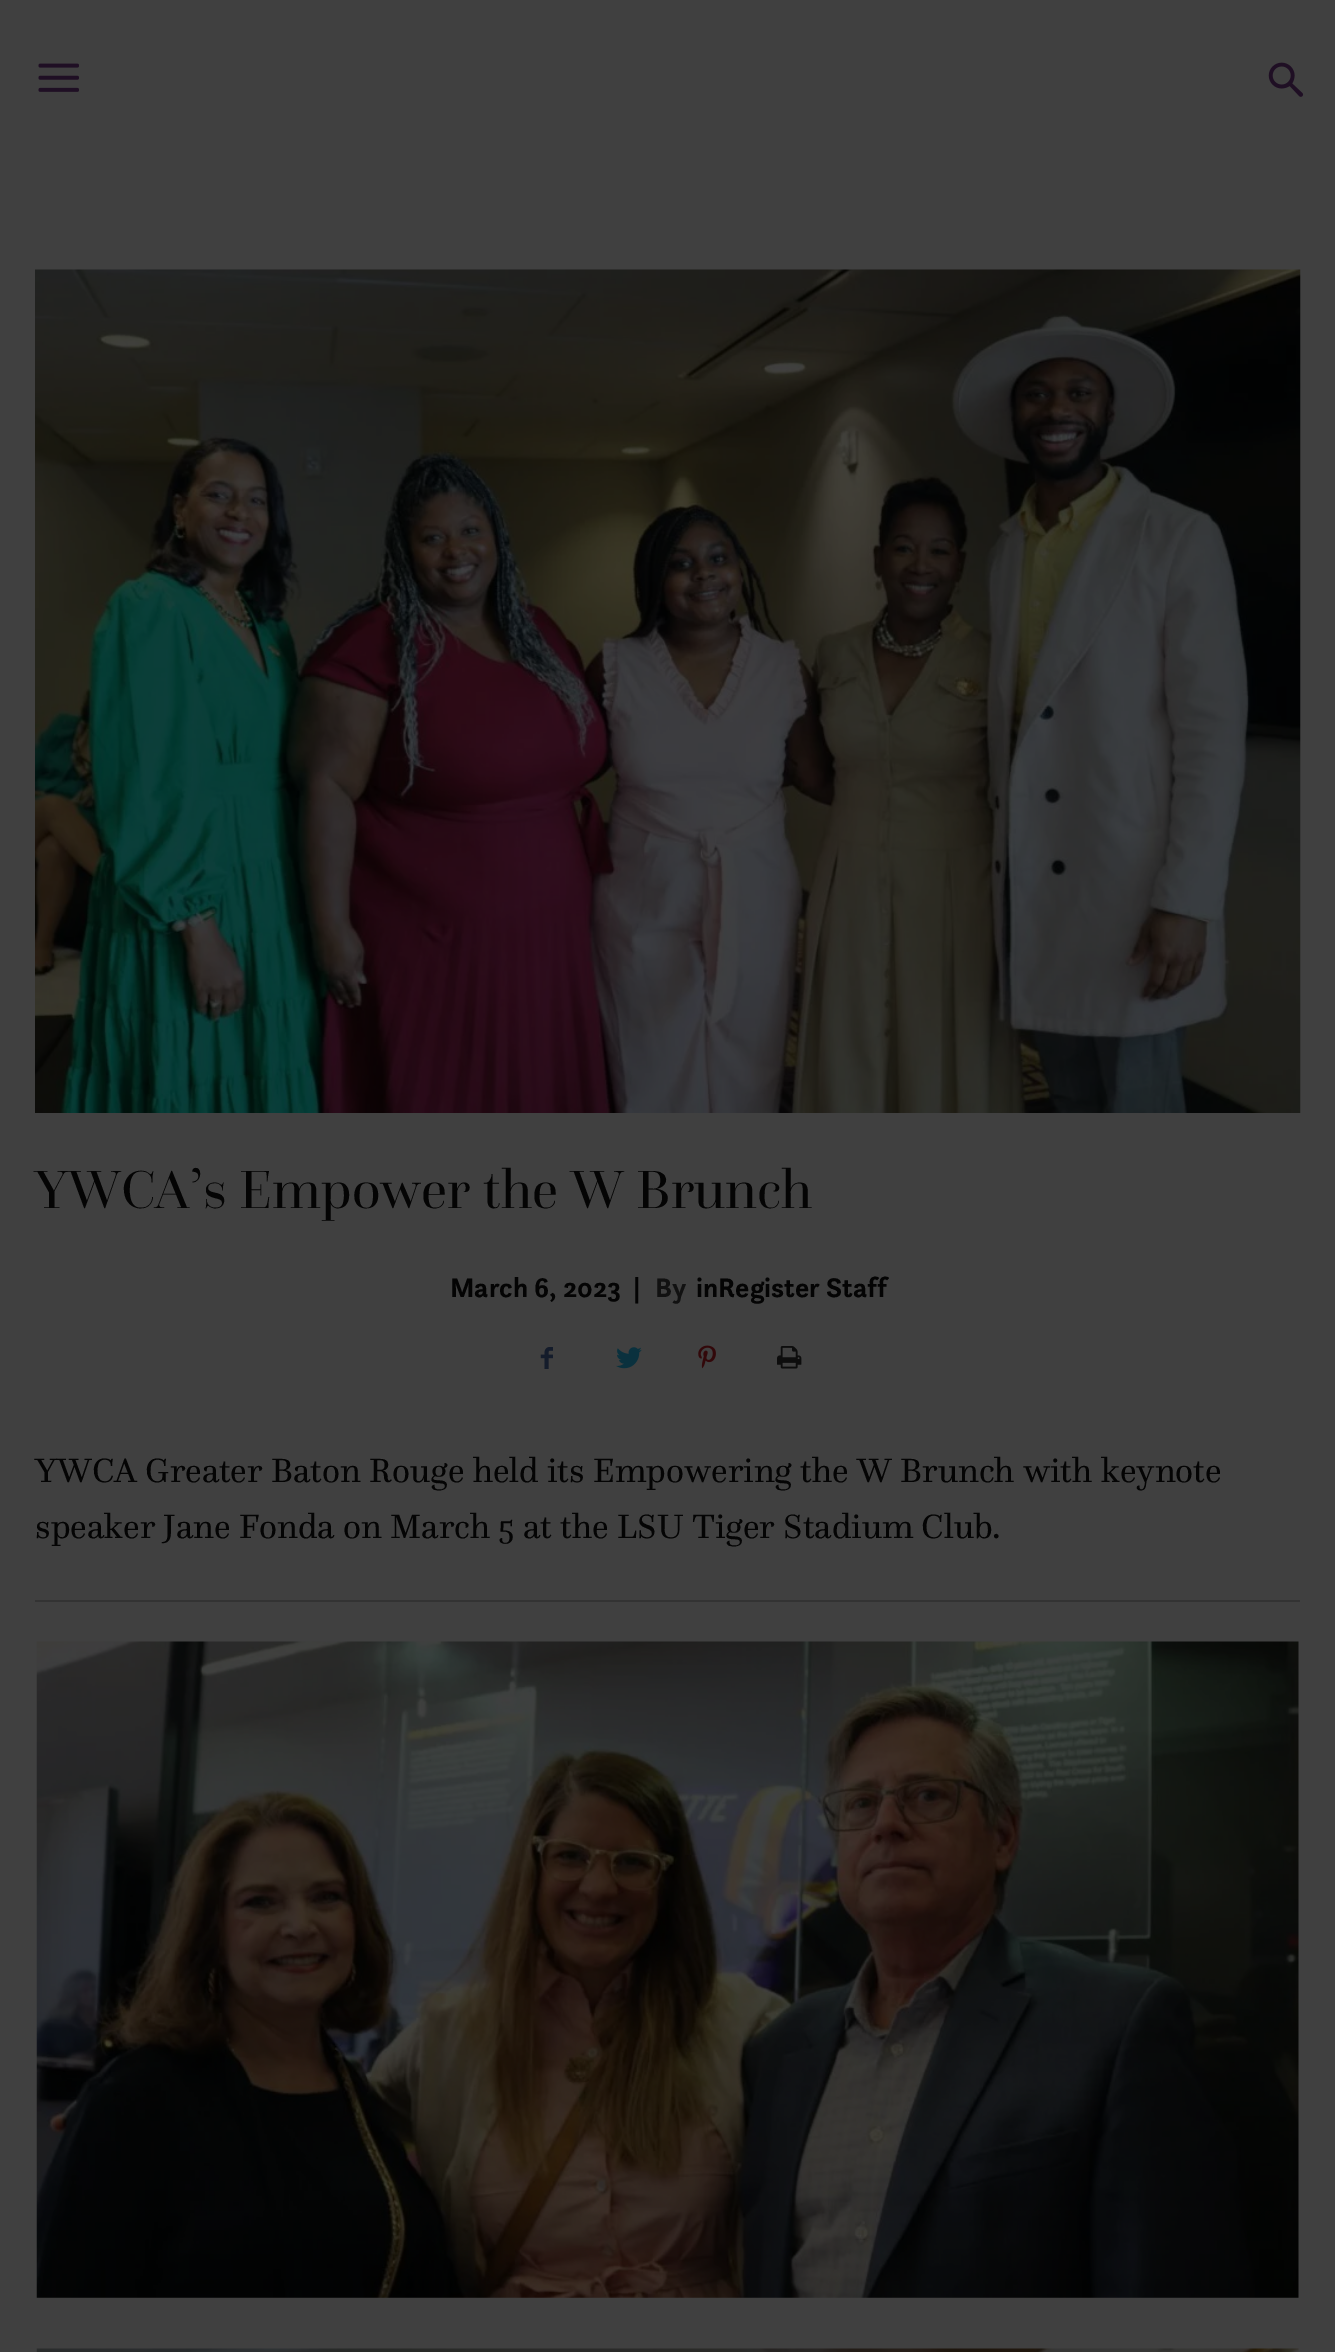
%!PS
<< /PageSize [1335 2352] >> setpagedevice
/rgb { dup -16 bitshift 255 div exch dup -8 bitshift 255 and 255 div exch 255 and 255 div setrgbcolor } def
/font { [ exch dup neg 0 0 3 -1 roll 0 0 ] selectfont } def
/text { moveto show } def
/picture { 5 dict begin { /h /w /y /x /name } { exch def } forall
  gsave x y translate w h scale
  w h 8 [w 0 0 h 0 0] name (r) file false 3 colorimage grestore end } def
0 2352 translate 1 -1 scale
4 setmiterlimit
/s1 { /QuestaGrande-Regular 56 font 16#040404 rgb } def
/s2 { /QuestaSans-Bold 28 font 16#040404 rgb } def
/s3 { /QuestaSans-Bold 28 font 16#111111 rgb } def
/s4 { /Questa-Regular 35 font 16#040404 rgb } def
16#404040 rgb
0 0 1335 2352 rectfill
(pic1.raw) 38 63 41 29 picture
(pic2.raw) 1268 62 36 35 picture
(pic3.raw) 35 269 1266 844 picture
s1
(YWCA’s Empower the W Brunch) 35 1208 text
s2
(March 6, 2023) 450 1297 text
(|) 633 1297 text
s3
(By) 655 1297 text
s2
(inRegister Staff) 696 1297 text
(pic4.raw) 540 1347 13 22 picture
(pic5.raw) 616 1347 26 22 picture
(pic6.raw) 698 1345 18 24 picture
(pic7.raw) 777 1346 25 23 picture
s4
(YWCA Greater Baton Rouge held its Empowering the W Brunch with keynote) 35 1482 text
(speaker Jane Fonda on March 5 at the LSU Tiger Stadium Club.) 35 1538 text
16#333333 rgb
35 1600 1265 2 rectfill
(pic8.raw) 36 1641 1263 657 picture
(pic9.raw) 36 2348 1263 4 picture
showpage
